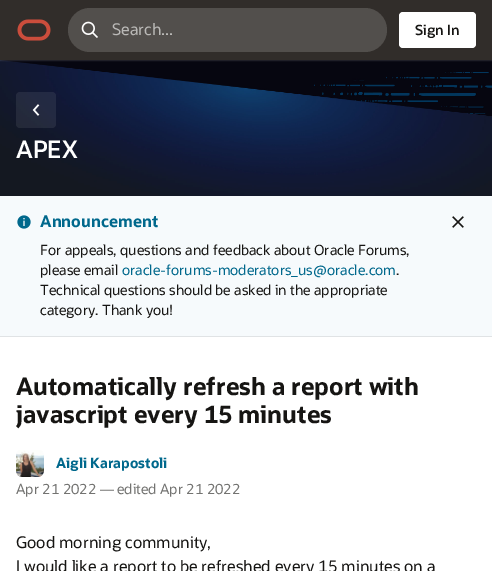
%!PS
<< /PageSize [492 571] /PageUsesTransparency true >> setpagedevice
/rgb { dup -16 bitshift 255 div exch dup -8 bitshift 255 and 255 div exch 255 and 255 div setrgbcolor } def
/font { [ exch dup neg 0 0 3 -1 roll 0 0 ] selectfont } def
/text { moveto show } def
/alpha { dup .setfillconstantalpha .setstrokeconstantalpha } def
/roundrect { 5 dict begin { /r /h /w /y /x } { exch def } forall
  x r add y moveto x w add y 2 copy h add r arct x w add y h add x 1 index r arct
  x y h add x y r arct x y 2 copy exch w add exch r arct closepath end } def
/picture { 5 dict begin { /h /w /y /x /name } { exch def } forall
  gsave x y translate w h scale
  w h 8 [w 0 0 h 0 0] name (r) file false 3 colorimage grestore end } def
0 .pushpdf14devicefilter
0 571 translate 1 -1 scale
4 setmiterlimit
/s1 { /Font-Regular 16 font 16#BAB9B7 rgb } def
/s2 { /Font-SemiBold 14 font 16#161513 rgb } def
/s3 { /Font-SemiBold 24 font 16#FFFFFF rgb } def
/s4 { /Font-Bold 16 font 16#00688C rgb } def
/s5 { /Font-Regular 14 font 16#161513 rgb } def
/s6 { /Font-Regular 14 font 16#00688C rgb } def
/s7 { /Font-Bold 24 font 16#161513 rgb } def
/s8 { /Font-Bold 14 font 16#00688C rgb } def
/s9 { /Font-Regular 14 font 16#737371 rgb } def
/s10 { /Font-Regular 16 font 16#161513 rgb } def
16#FFFFFF rgb
0 0 492 571 rectfill
(pic3.raw) 0 60 492 136 picture
0.1 alpha
-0.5 -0.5 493 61 rectstroke
1 alpha
16#312D2A rgb
0 0 492 60 rectfill
(pic1.raw) 17 19 34 22 picture
16#524F4C rgb
68 8 319 44 22 roundrect fill
(pic2.raw) 81 21 17 17 picture
s1
(Search...) 112 35 text
16#FFFFFF rgb
399 12 77 36 4 roundrect fill
s2
(Sign In) 415 35 text
0.08 alpha
16#FBF9F8 rgb
16 92 40 36 4 roundrect fill
1 alpha
(pic4.raw) 32 104 8 12 picture
s3
(APEX) 16 158 text
16#F6FAFC rgb
0 196 492 140 rectfill
16#E0E3E5 rgb
0 336 492 1 rectfill
(pic5.raw) 17 215 14 14 picture
s4
(Announcement) 40 227 text
s5
(For appeals, questions and feedback about Oracle Forums,) 40 255 text
(please email) 40 275 text
s6
(oracle-forums-moderators_us@oracle.com) 122 275 text
s5
(.) 396 275 text
(Technical questions should be asked in the appropriate) 40 295 text
(category. Thank you!) 40 315 text
(pic6.raw) 452 216 12 12 picture
s7
(Automatically refresh a report with) 16 395 text
(javascript every 15 minutes) 16 423 text
(pic7.raw) 16 450 28 27 picture
s8
(Aigli Karapostoli) 56 468 text
s9
(Apr 21 2022 — edited Apr 21 2022) 16 494 text
s10
(Good morning community,) 16 548 text
(I would like a report to be refreshed every 15 minutes on a) 16 572 text
.poppdf14devicefilter showpage
